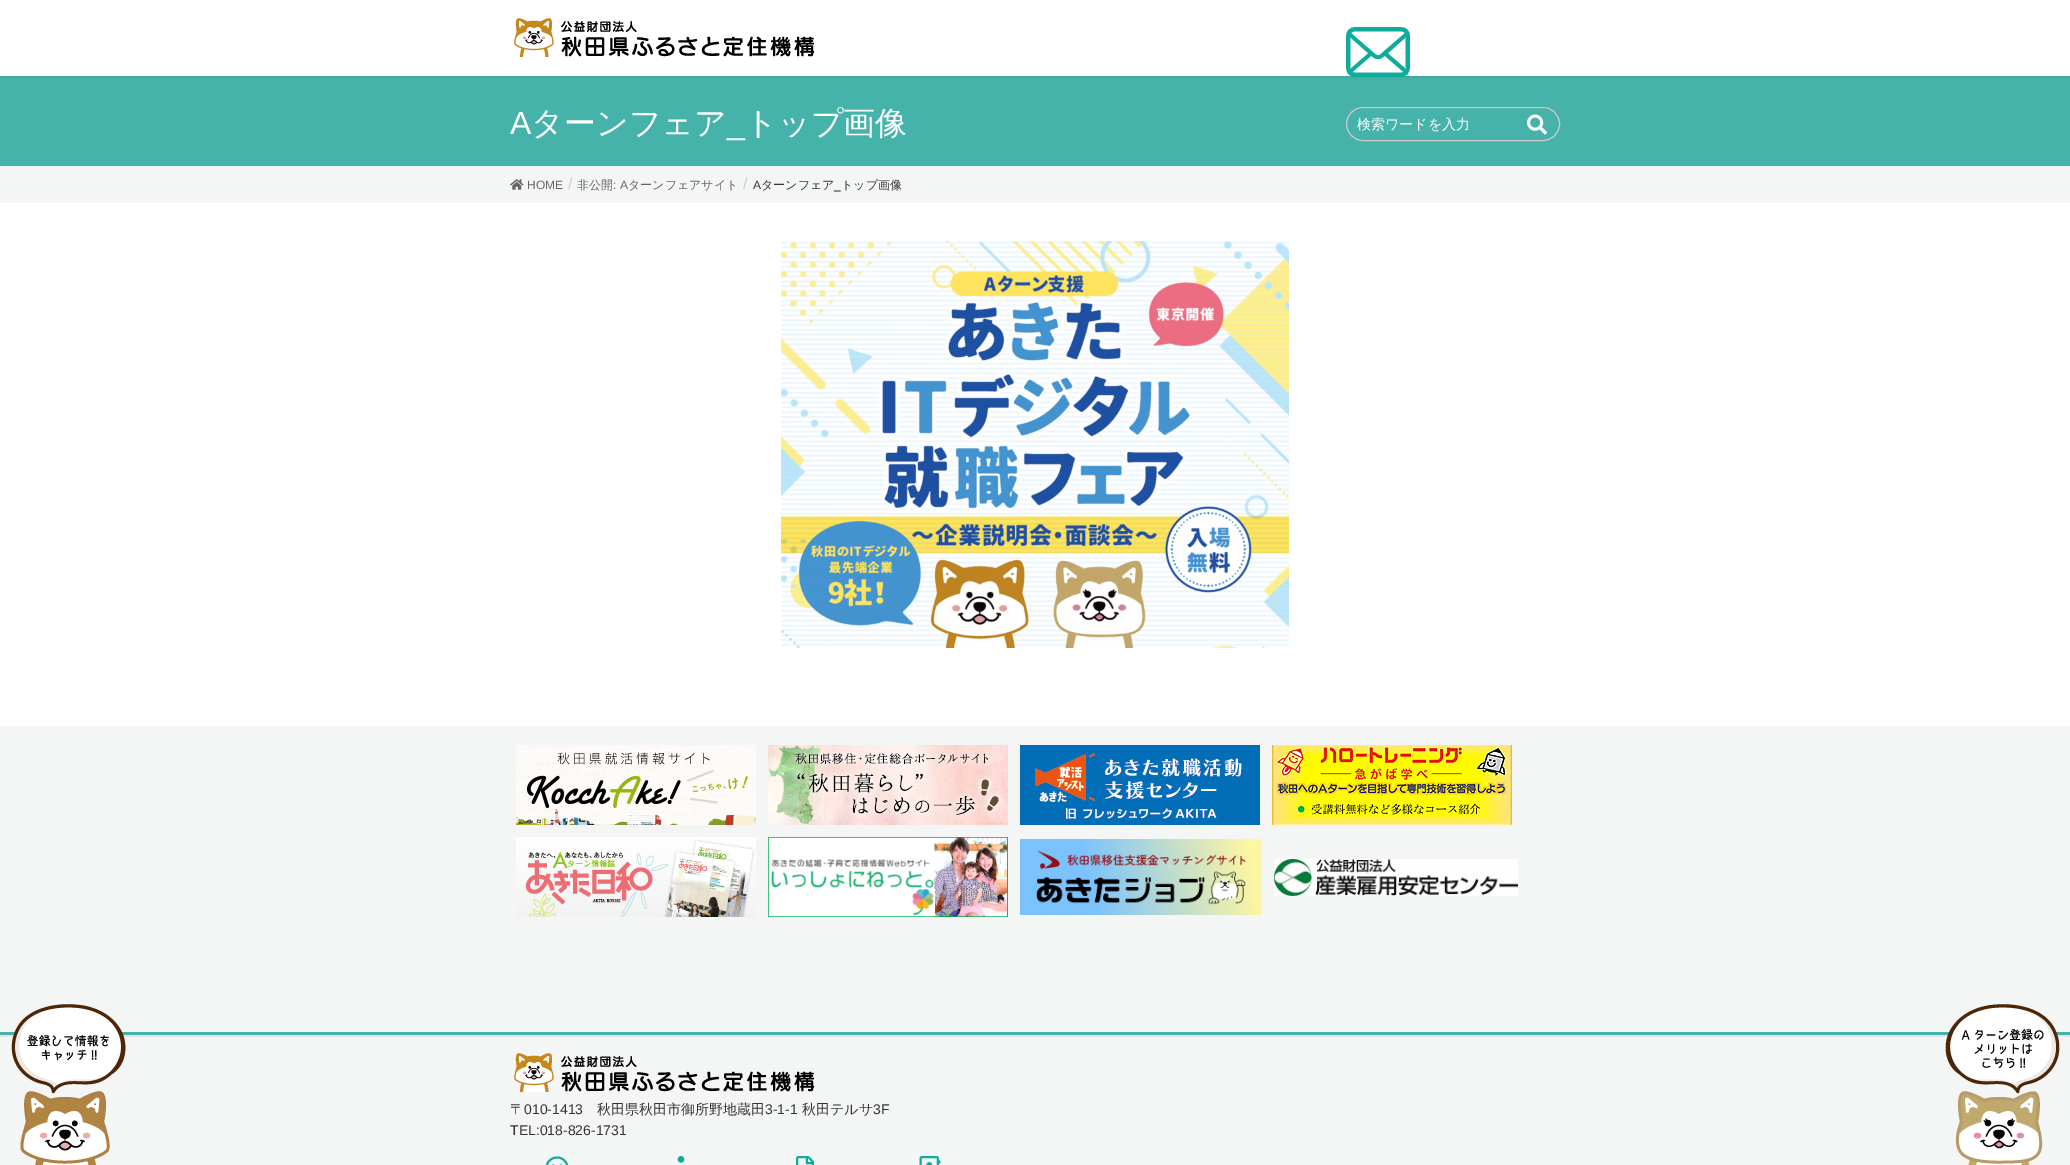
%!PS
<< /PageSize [2070 1165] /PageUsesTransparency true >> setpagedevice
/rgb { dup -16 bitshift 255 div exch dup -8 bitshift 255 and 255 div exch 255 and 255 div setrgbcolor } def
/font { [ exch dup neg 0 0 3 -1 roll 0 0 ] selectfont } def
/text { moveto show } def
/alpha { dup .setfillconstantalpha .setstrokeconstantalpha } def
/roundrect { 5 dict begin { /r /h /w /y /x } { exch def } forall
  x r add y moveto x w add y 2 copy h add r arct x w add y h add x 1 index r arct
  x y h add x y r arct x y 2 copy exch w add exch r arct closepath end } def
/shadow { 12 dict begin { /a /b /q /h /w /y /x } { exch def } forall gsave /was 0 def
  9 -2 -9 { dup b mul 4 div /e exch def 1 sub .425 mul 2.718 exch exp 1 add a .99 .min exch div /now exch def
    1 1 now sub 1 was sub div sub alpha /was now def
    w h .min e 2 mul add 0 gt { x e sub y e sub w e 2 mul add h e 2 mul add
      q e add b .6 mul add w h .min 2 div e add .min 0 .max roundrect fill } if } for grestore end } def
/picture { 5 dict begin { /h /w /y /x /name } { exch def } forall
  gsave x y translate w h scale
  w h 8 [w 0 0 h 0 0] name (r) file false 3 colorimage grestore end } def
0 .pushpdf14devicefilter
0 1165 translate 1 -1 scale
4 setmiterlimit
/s1 { /LiberationSans-Regular 32 font 16#FFFFFF rgb } def
/s2 { /WenQuanYiZenHei-Medium 32 font 16#FFFFFF rgb } def
/s3 { /WenQuanYiZenHei-Medium 14 font 16#FFFFFF rgb } def
/s4 { /LiberationSans-Regular 12 font 16#666666 rgb } def
/s5 { /LiberationSans-Regular 16 font 16#CCCCCC rgb } def
/s6 { /WenQuanYiZenHei-Medium 12 font 16#666666 rgb } def
/s7 { /LiberationSans-Regular 12 font 16#333333 rgb } def
/s8 { /WenQuanYiZenHei-Medium 12 font 16#333333 rgb } def
/s9 { /WenQuanYiZenHei-Medium 14 font 16#333333 rgb } def
/s10 { /LiberationSans-Regular 14 font 16#333333 rgb } def
16#F4F5F5 rgb
0 0 2070 1165 rectfill
16#45B3AA rgb
0 76 2070 90 rectfill
16#EEEEEE rgb
0 166 2070 1 rectfill
s1
(A) 510 134 text
s2
(ターンフェア) 531 134 text
(トップ画像) 745 134 text
s1
(_) 727 134 text
16#000000 rgb
0 1 2070 76 0 1.5 0.1 shadow
16#FFFFFF rgb
0 0 2070 76 rectfill
(pic1.raw) 514 18 301 39 picture
(pic2.raw) 1346 27 64 50 picture
16#40A69D rgb
1363 109 moveto 1543 109 lineto 1552 109 1559 116 1559 124 curveto 1560 101 1525 108 1513 108 curveto 1393 108 lineto 1381 108 1346 101 1347 124 curveto 1347 116 1354 109 1363 109 curveto closepath fill
16#CCCCCC rgb
1346.5 107.5 213 33 16.5 roundrect stroke
s3
(検索ワードを入力) 1357 129 text
(pic3.raw) 1527 114 20 21 picture
(pic4.raw) 510 179 14 11 picture
s4
(HOME) 527 189 text
s5
(/) 568 189 text
s6
(非公開) 577 189 text
s4
(: A) 613 189 text
s6
(ターンフェアサイト) 628 189 text
s5
(/) 743 189 text
s7
(A) 753 189 text
s8
(ターンフェア) 761 189 text
s7
(_) 834 189 text
s8
(トップ画像) 841 189 text
16#FFFFFF rgb
0 203 2070 523 rectfill
(pic5.raw) 781 241 508 407 picture
(pic6.raw) 516 745 240 80 picture
(pic7.raw) 768 745 240 80 picture
(pic8.raw) 1020 745 240 80 picture
(pic9.raw) 1272 745 240 80 picture
(pic10.raw) 516 837 240 80 picture
(pic11.raw) 768 837 240 80 picture
(pic12.raw) 1020 839 242 76 picture
(pic13.raw) 1274 859 244 37 picture
16#45B3AA rgb
0 1032 2070 3 rectfill
16#E5E5E5 rgb
0 1035 2070 2 rectfill
(pic14.raw) 11 1004 115 161 picture
(pic15.raw) 1945 1004 115 161 picture
(pic16.raw) 514 1053 301 39 picture
s9
(〒) 510 1114 text
s10
(010-1413) 524 1114 text
s9
(秋田県秋田市御所野地蔵田) 597 1114 text
s10
(3-1-1) 765 1114 text
s9
(秋田テルサ) 802 1114 text
s10
(3F) 873 1114 text
(TEL:018-826-1731) 510 1135 text
(pic17.raw) 545 1156 24 9 picture
(pic18.raw) 677 1156 8 7 picture
(pic19.raw) 796 1156 18 9 picture
(pic20.raw) 919 1156 22 9 picture
.poppdf14devicefilter showpage
